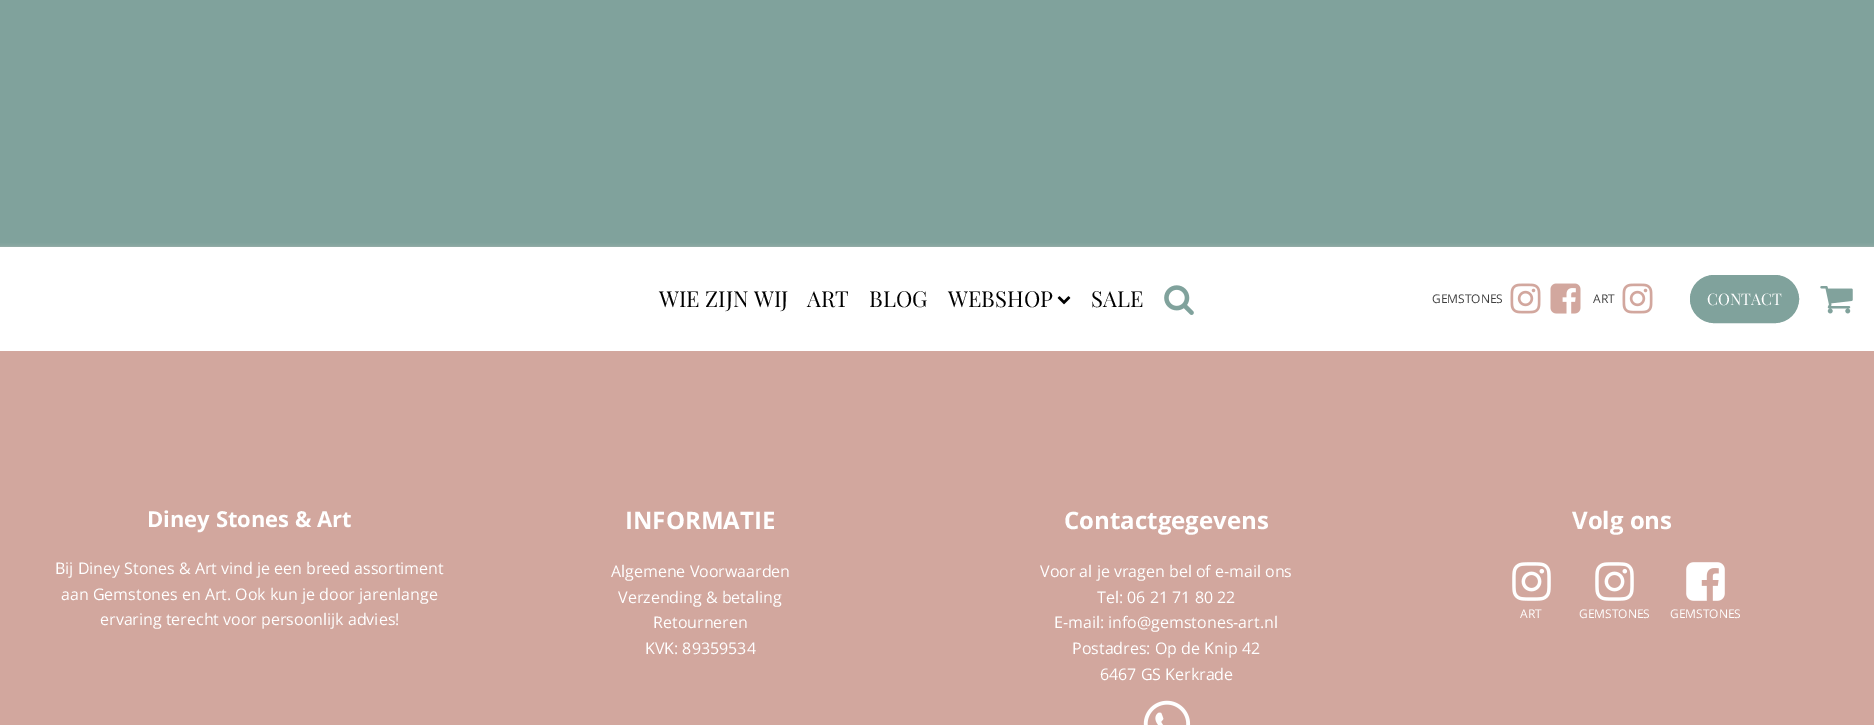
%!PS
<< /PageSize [1874 725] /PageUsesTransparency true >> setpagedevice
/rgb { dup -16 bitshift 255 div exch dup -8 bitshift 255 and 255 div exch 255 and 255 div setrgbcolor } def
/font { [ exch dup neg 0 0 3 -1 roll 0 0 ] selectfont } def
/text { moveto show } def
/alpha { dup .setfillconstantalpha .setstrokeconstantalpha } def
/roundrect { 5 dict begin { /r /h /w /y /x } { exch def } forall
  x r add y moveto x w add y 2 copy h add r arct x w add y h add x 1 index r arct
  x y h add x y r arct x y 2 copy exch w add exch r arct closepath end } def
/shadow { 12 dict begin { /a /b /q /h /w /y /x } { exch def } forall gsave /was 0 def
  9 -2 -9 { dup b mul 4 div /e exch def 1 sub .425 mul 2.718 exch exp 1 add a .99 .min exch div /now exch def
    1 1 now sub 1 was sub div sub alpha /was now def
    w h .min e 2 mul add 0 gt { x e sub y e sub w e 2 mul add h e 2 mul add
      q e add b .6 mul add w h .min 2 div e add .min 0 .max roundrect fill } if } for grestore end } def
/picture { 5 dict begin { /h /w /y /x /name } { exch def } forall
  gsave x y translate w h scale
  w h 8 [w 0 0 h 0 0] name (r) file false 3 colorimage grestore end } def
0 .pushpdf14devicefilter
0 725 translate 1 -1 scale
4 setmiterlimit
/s1 { /PlayfairDisplay-Regular 22 font 16#000000 rgb } def
/s2 { /OpenSans-Regular 12 font 16#404040 rgb } def
/s3 { /PlayfairDisplay-Regular 16 font 16#FFFFFF rgb } def
/s4 { /OpenSans-Bold 22 font 16#FFFFFF rgb } def
/s5 { /OpenSans-Regular 16 font 16#FFFFFF rgb } def
/s6 { /OpenSans-Bold 24 font 16#FFFFFF rgb } def
/s7 { /OpenSans-Regular 12 font 16#FFFFFF rgb } def
16#FFFFFF rgb
0 0 1874 725 rectfill
16#80A29C rgb
0 0 1874 247 rectfill
gsave
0 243 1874 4 rectclip
16#C1C1C1 rgb
0 248 1874 104 0 2.5 1 shadow
grestore
s1
(WIE ZIJN WIJ) 659 307 text
(ART) 807 307 text
(BLOG) 869 307 text
(WEBSHOP) 948 307 text
(pic1.raw) 1057 296 14 9 picture
(SALE) 1091 307 text
(pic2.raw) 1164 285 30 30 picture
s2
(GEMSTONES) 1432 303 text
(pic3.raw) 1510 283 31 31 picture
(pic4.raw) 1550 283 31 31 picture
(ART) 1593 303 text
(pic3.raw) 1622 283 31 31 picture
16#80A29C rgb
1690.5 275.5 108 47 23.5 roundrect gsave fill grestore
stroke
s3
(CONTACT) 1707 305 text
(pic5.raw) 1820 286 33 28 picture
16#D2A79E rgb
0 351 1874 374 rectfill
s4
(Diney Stones & Art) 147 527 text
s5
(Bij Diney Stones & Art vind je een breed assortiment) 55 574 text
(aan Gemstones en Art. Ook kun je door jarenlange) 61 600 text
(ervaring terecht voor persoonlijk advies!) 100 625 text
s6
(INFORMATIE) 625 529 text
s5
(Algemene Voorwaarden) 611 577 text
(Verzending & betaling) 618 603 text
(Retourneren) 653 628 text
(KVK: 89359534) 645 654 text
s6
(Contactgegevens) 1064 529 text
s5
(Voor al je vragen bel of e-mail ons) 1040 577 text
(Tel: 06 21 71 80 22) 1097 603 text
(E-mail: info@gemstones-art.nl) 1054 628 text
(Postadres: Op de Knip 42) 1072 654 text
(6467 GS Kerkrade) 1100 680 text
(pic6.raw) 1143 700 48 25 picture
s6
(Volg ons) 1572 529 text
(pic7.raw) 1512 562 39 39 picture
s7
(ART) 1520 618 text
(pic7.raw) 1595 562 39 39 picture
(GEMSTONES) 1579 618 text
(pic8.raw) 1686 562 39 39 picture
(GEMSTONES) 1670 618 text
.poppdf14devicefilter showpage
